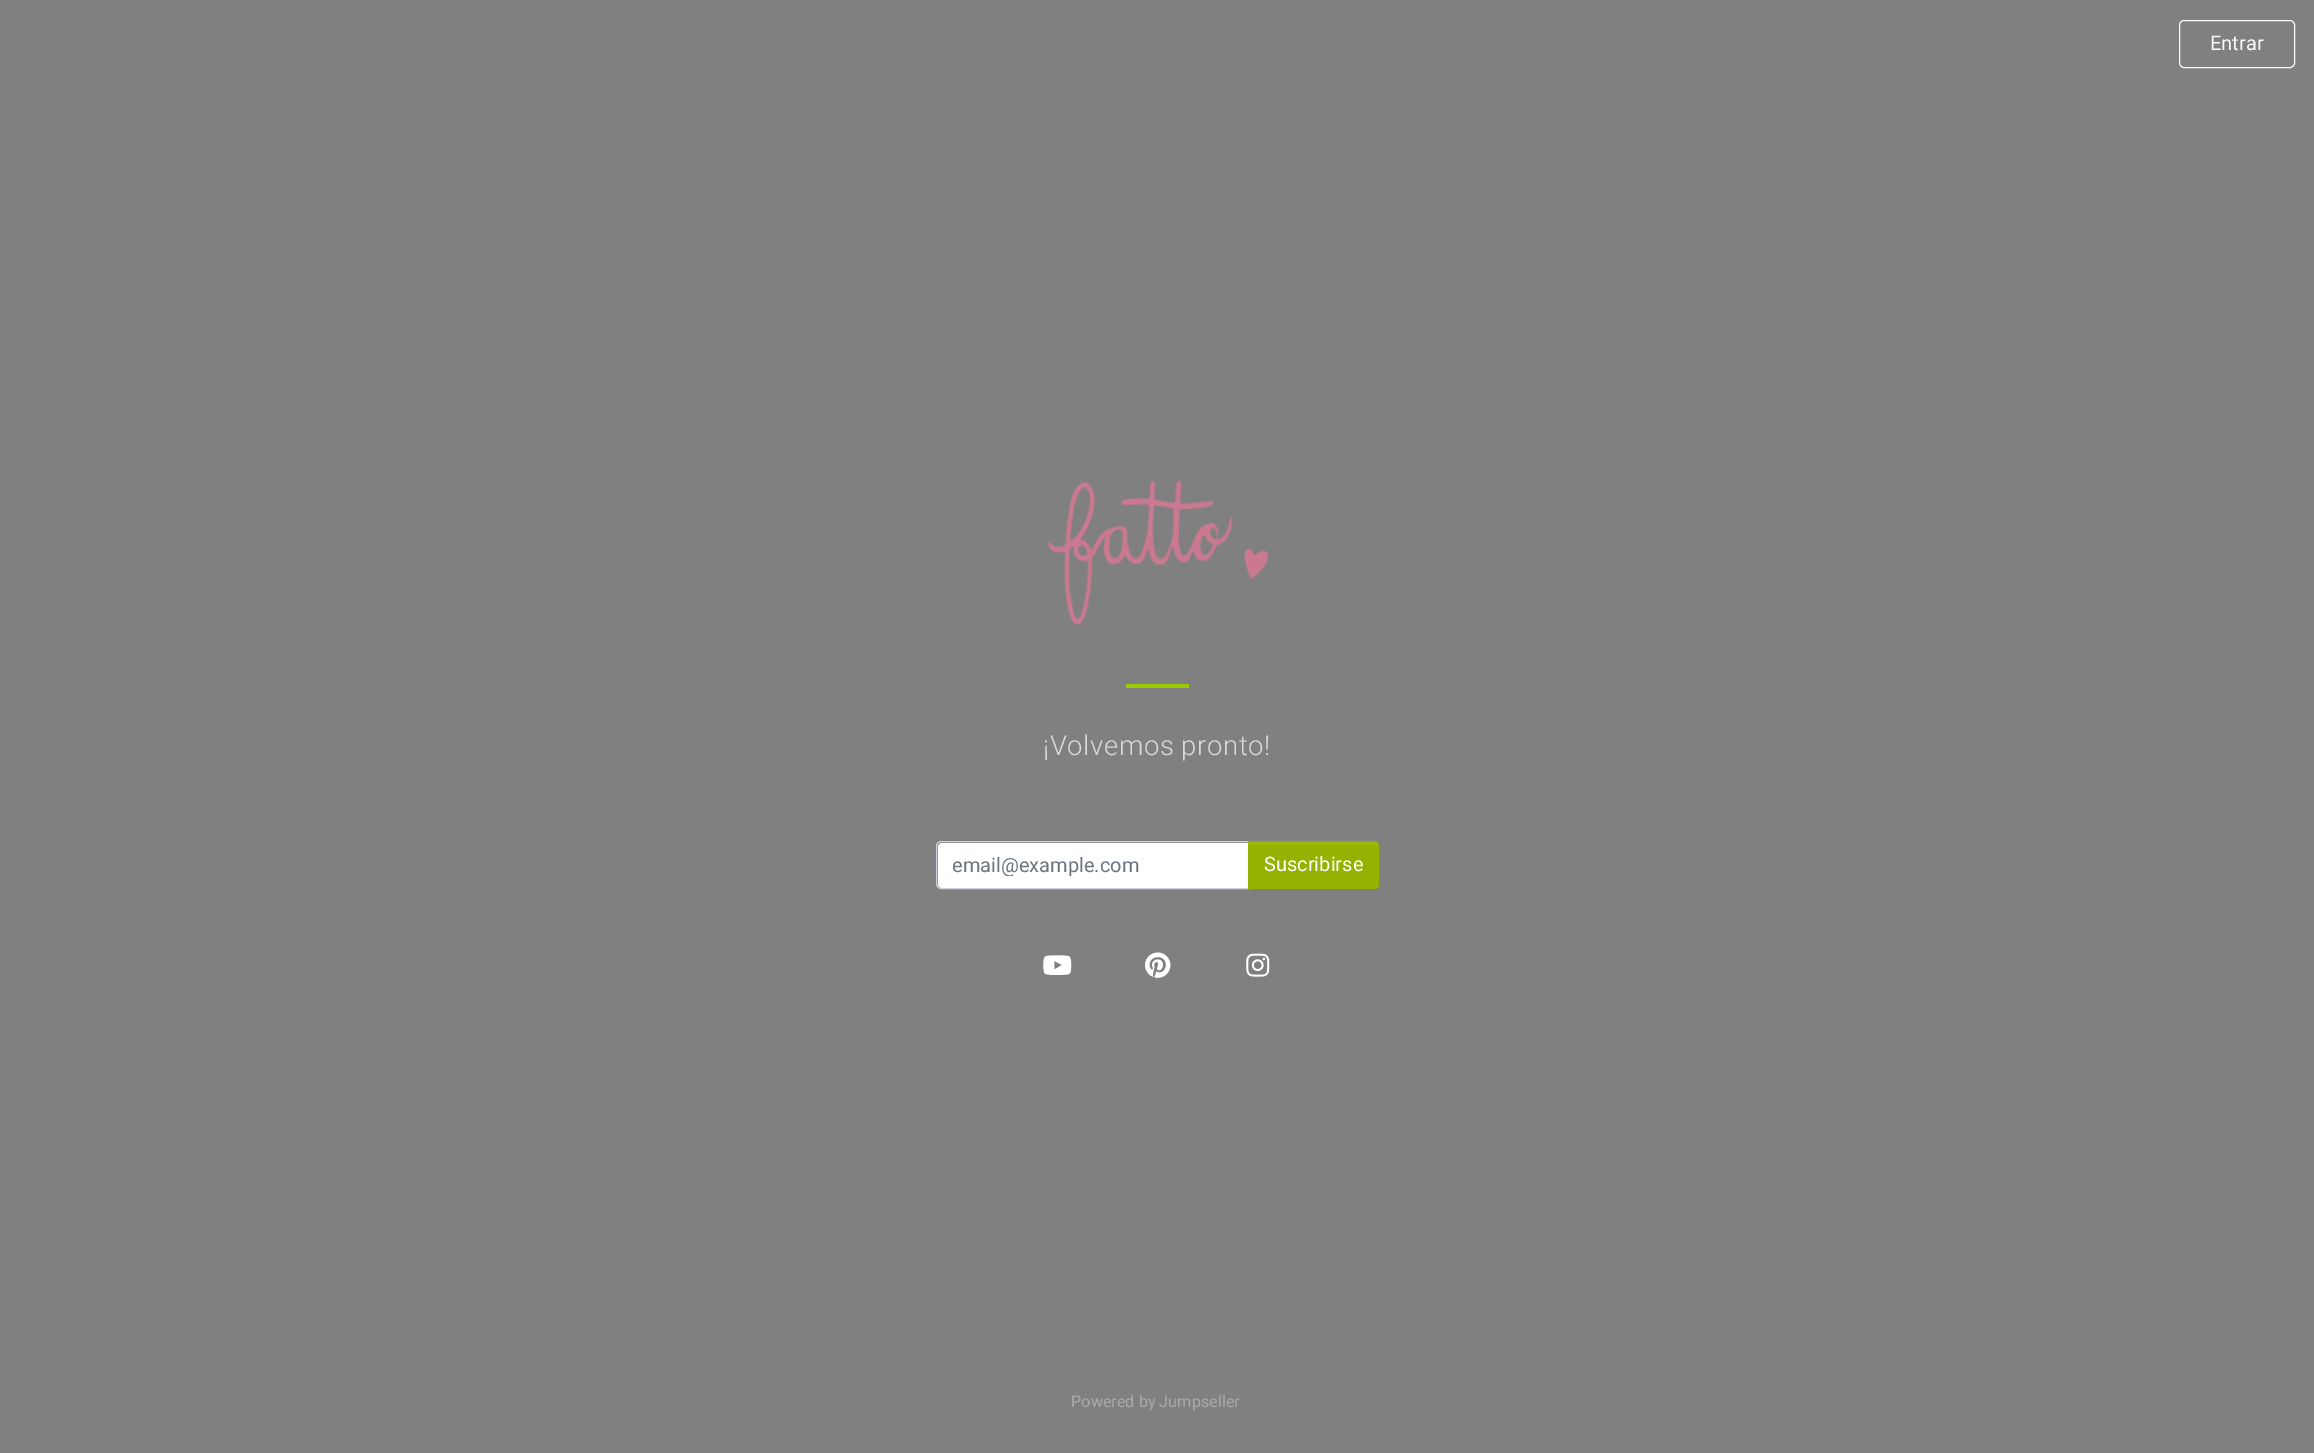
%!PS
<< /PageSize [2314 1453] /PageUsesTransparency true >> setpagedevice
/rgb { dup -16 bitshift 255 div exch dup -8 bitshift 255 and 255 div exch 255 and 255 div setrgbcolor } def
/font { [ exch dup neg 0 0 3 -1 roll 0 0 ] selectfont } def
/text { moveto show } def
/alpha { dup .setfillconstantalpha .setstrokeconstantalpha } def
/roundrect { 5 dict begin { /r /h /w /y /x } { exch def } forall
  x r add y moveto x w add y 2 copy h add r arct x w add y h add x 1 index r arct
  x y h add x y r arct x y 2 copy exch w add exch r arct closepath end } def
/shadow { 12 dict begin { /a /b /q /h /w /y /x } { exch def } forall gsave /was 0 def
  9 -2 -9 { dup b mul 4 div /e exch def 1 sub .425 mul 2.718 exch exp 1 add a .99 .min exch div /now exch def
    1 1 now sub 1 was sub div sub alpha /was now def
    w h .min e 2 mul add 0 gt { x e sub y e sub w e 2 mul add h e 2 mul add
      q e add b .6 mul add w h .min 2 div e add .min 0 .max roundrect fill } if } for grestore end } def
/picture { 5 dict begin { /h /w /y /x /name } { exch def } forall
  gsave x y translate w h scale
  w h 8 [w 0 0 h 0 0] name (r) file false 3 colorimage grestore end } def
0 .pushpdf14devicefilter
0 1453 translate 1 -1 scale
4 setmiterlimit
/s1 { /Roboto-Regular 20 font 16#F8F9FA rgb } def
/s2 { /Roboto-Regular 20 font 16#6C757D rgb } def
/s3 { /Roboto-Regular 20 font 16#FFFFFF rgb } def
/s4 { /Roboto-Regular 16.25 font 16#AAAAAA rgb } def
16#808080 rgb
0 0 2314 1453 rectfill
16#F8F9FA rgb
2179.5 20.5 115 47 4.5 roundrect stroke
s1
(Entrar) 2210 50 text
(pic1.raw) 1047 481 222 144 picture
16#99CC00 rgb
1126 684 63 4 rectfill
/Roboto-Light 27.5 font
16#D9D9D9 rgb
1043 755 moveto 0.6 0 (¡Volvemos pronto!) ashow
16#FFFFFF rgb
942 843 moveto 1248 843 lineto 1248 888 lineto 942 888 lineto 940 888 938 886 938 884 curveto 938 847 lineto 938 845 940 843 942 843 curveto closepath fill
16#CED4DA rgb
941 841.5 moveto 1248.5 841.5 lineto 1248.5 888.5 lineto 941 888.5 lineto 938.5 888.5 936.5 886.5 936.5 884 curveto 936.5 846 lineto 936.5 843.5 938.5 841.5 941 841.5 curveto closepath stroke
gsave
953 853 280 23 rectclip
s2
(email@example.com) 952 872 text
grestore
16#000000 rgb
1248 843 131 47 5 0.5 0.07 shadow
16#95B200 rgb
1248 841 moveto 1374 841 lineto 1377 841 1379 843 1379 846 curveto 1379 884 lineto 1379 887 1377 889 1374 889 curveto 1248 889 lineto closepath fill
16#A5BE26 rgb
1249 844 moveto 1374 844 lineto 1376 844 1378 845 1378 848 curveto 1378 847 lineto 1378 845 1376 843 1374 843 curveto 1249 843 lineto closepath fill
16#95B200 rgb
1248.5 841.5 moveto 1374 841.5 lineto 1376.5 841.5 1378.5 843.5 1378.5 846 curveto 1378.5 884 lineto 1378.5 886.5 1376.5 888.5 1374 888.5 curveto 1248.5 888.5 lineto closepath stroke
s3
(Suscribirse) 1264 871 text
(pic2.raw) 1043 955 29 20 picture
(pic3.raw) 1145 952 26 26 picture
(pic4.raw) 1246 953 24 24 picture
s4
(Powered by Jumpseller) 1071 1407 text
.poppdf14devicefilter showpage
